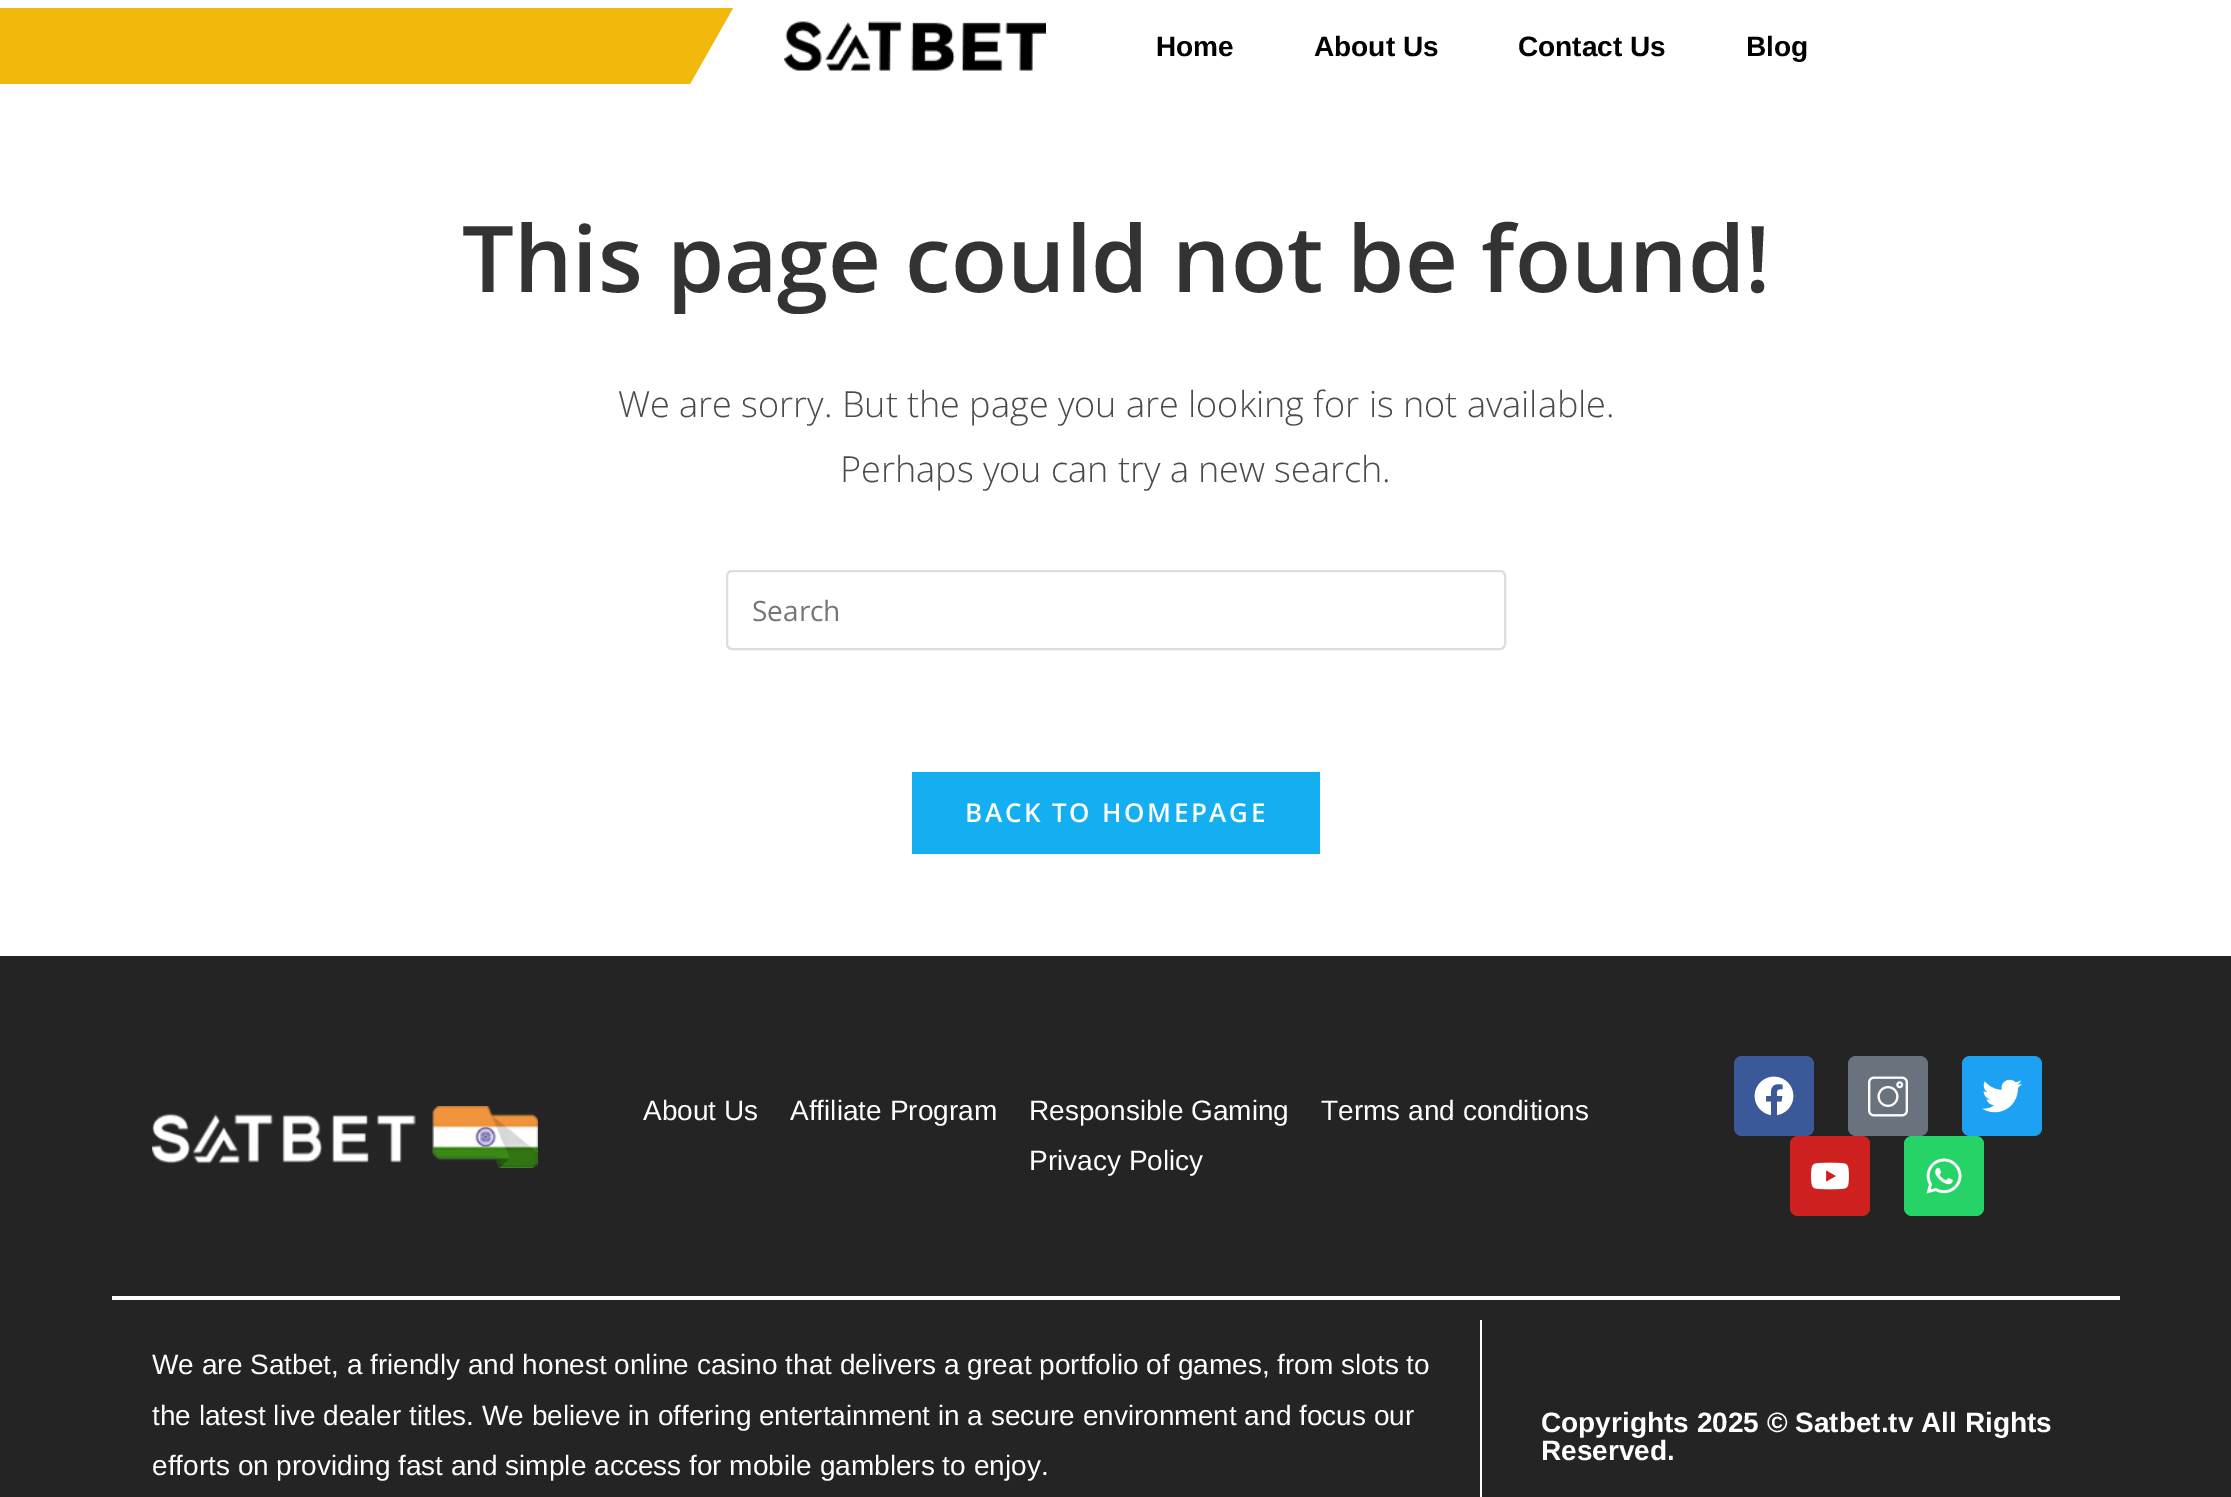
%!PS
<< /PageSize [2231 1497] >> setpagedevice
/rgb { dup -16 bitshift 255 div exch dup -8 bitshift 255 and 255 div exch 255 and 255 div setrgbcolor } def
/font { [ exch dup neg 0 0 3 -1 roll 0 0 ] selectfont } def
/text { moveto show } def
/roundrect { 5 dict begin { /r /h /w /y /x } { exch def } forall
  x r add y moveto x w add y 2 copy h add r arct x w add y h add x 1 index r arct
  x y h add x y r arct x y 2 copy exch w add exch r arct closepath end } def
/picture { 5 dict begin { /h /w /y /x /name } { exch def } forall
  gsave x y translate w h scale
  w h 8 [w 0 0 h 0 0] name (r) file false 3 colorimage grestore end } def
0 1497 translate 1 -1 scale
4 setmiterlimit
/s1 { /LiberationSans-Bold 28 font 16#000000 rgb } def
/s2 { /OpenSans-SemiBold 92 font 16#333333 rgb } def
/s3 { /OpenSans-Light 36 font 16#4A4A4A rgb } def
/s4 { /OpenSans-Regular 28 font 16#757575 rgb } def
/s5 { /LiberationSans-Regular 28 font 16#FFFFFF rgb } def
/s6 { /LiberationSans-Bold 28 font 16#FFFFFF rgb } def
16#FFFFFF rgb
0 0 2231 1497 rectfill
16#F0B90B rgb
-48 8 moveto 733 8 lineto 690 84 lineto -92 84 lineto closepath fill
(pic1.raw) 784 21 262 50 picture
s1
(Home) 1156 56 text
(About Us) 1314 56 text
(Contact Us) 1518 56 text
(Blog) 1746 56 text
s2
(This page could not be found!) 462 292 text
s3
(We are sorry. But the page you are looking for is not available.) 618 417 text
(Perhaps you can try a new search.) 840 482 text
16#DDDDDD rgb
2 setlinewidth
727 571 778 78 5 roundrect stroke
s4
(Search) 752 621 text
16#13AFF0 rgb
912 772 408 82 rectfill
/OpenSans-SemiBold 26 font
16#FFFFFF rgb
965 822 moveto 2.6 0 (BACK TO HOMEPAGE) ashow
16#242424 rgb
0 956 2231 541 rectfill
(pic2.raw) 152 1106 386 62 picture
s5
(About Us) 643 1120 text
(Affiliate Program) 790 1120 text
(Responsible Gaming) 1029 1120 text
(Terms and conditions) 1321 1120 text
(Privacy Policy) 1029 1170 text
16#3B5998 rgb
1734 1056 80 80 8 roundrect fill
(pic3.raw) 1754 1076 40 40 picture
16#69727D rgb
1848 1056 80 80 8 roundrect fill
(pic4.raw) 1868 1076 40 41 picture
16#1DA1F2 rgb
1962 1056 80 80 8 roundrect fill
(pic5.raw) 1982 1079 40 34 picture
16#CD201F rgb
1790 1136 80 80 8 roundrect fill
(pic6.raw) 1811 1162 38 28 picture
16#25D366 rgb
1904 1136 80 80 8 roundrect fill
(pic7.raw) 1926 1158 36 36 picture
16#FFFFFF rgb
112 1296 2008 4 rectfill
1480 1320 2 177 rectfill
(We are Satbet, a friendly and honest online casino that delivers a great portfolio of games, from slots to) 152 1374 text
(the latest live dealer titles. We believe in offering entertainment in a secure environment and focus our) 152 1425 text
(efforts on providing fast and simple access for mobile gamblers to enjoy.) 152 1475 text
s6
(Copyrights 2025 © Satbet.tv All Rights) 1541 1432 text
(Reserved.) 1541 1460 text
showpage
